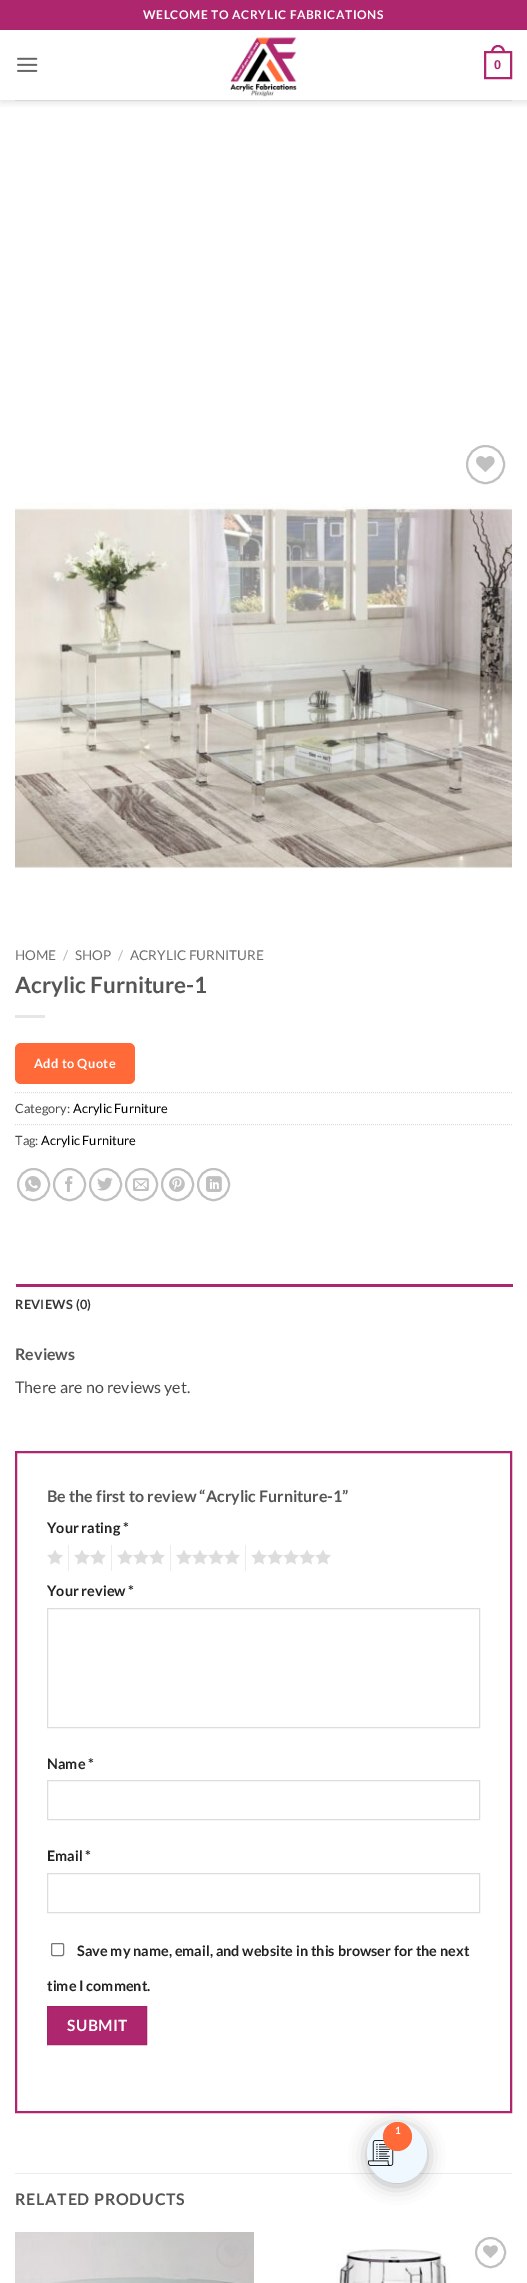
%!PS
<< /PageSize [527 2283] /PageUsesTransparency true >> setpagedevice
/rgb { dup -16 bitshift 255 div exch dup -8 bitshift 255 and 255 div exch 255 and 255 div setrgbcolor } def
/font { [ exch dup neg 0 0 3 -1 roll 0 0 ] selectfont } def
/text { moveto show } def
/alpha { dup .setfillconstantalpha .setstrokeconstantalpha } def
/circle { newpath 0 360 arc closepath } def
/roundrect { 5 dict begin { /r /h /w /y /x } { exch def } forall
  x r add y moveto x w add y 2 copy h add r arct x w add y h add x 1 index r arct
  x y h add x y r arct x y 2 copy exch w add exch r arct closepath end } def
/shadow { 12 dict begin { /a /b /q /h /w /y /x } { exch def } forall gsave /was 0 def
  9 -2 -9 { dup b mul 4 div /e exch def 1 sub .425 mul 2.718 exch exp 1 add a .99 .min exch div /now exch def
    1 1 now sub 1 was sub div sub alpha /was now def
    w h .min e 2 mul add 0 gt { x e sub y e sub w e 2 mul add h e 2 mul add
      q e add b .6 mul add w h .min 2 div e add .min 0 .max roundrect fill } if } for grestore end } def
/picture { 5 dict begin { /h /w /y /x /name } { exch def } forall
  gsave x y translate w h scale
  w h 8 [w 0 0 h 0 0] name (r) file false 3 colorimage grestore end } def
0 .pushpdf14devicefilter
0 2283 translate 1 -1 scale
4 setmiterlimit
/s1 { /LiberationSans-Bold 12.75 font 16#AE266E rgb } def
/s2 { /Lato-Regular 13.5 font 16#6E6E6E rgb } def
/s3 { /Lato-Regular 13.5 font 16#B2B2B2 rgb } def
/s4 { /Lato-Bold 22.5 font 16#555555 rgb } def
/s5 { /Lato-Regular 12.75 font 16#4A4A4A rgb } def
/s6 { /Lato-Regular 12.75 font 16#000000 rgb } def
/s7 { /Lato-Bold 16 font 16#555555 rgb } def
/s8 { /Lato-Regular 16 font 16#4A4A4A rgb } def
/s9 { /Lato-Bold 14.4 font 16#222222 rgb } def
/s10 { /Lato-Bold 10 font 16#FFFFFF rgb } def
16#FFFFFF rgb
0 0 527 2283 rectfill
gsave
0 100 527 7 rectclip
16#000000 rgb
1 1 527 100 0 5 0.15 shadow
grestore
16#AE266E rgb
0 0 527 30 rectfill
/Lato-Bold 12 font
16#FFFFFF rgb
143 19 moveto 0.6 0 (WELCOME TO ACRYLIC FABRICATIONS) ashow
(pic1.raw) 17 57 21 15 picture
(pic2.raw) 230 37 67 60 picture
16#AE266E rgb
2 setlinewidth
485 52 26 26 rectstroke
498 45 moveto 502.5 45 505 49 505 53 curveto 491 53 lineto 491 49 493.5 45 498 45 curveto closepath 498 47 moveto 501.5 47 503 50 503 53 curveto 493 53 lineto 493 50 494.5 47 498 47 curveto closepath eofill
s1
(0) 494 69 text
16#DADADA rgb
15 100 497 1 rectfill
16#C0C0C0 rgb
485.5 464.5 18.5 circle stroke
(pic3.raw) 476 456 19 16 picture
(pic4.raw) 15 503 497 366 picture
s2
(HOME) 15 960 text
s3
(/) 63 960 text
s2
(SHOP) 75 960 text
s3
(/) 118 960 text
s2
(ACRYLIC FURNITURE) 130 960 text
s4
(Acrylic Furniture-1) 15 993 text
16#E6E6E6 rgb
15 1015 30 3 rectfill
16#FF6A38 rgb
15 1043 120 41 6 roundrect fill
/Lato-Bold 12.75 font
16#FFFFFF rgb
34 1068 moveto 0.4 0 (Add to Quote) ashow
16#DDDDDD rgb
1 setlinewidth
[1 1] 0 setdash
15 1092.5 moveto 512 1092.5 lineto stroke
s5
(Category:) 15 1113 text
s6
(Acrylic Furniture) 73 1113 text
16#DDDDDD rgb
15 1124.5 moveto 512 1124.5 lineto stroke
s5
(Tag:) 15 1145 text
s6
(Acrylic Furniture) 41 1145 text
16#C0C0C0 rgb
2 setlinewidth
[] 0 setdash
33.5 1184.5 15.5 circle stroke
(pic5.raw) 25 1176 16 16 picture
69.5 1184.5 15.5 circle stroke
(pic6.raw) 65 1176 8 16 picture
105.5 1184.5 15.5 circle stroke
(pic7.raw) 97 1177 16 14 picture
141.5 1184.5 15.5 circle stroke
(pic8.raw) 133 1178 16 13 picture
177.5 1184.5 15.5 circle stroke
(pic9.raw) 169 1176 16 16 picture
213.5 1184.5 15.5 circle stroke
(pic10.raw) 206 1176 16 16 picture
16#ECECEC rgb
15 1284 1 1 rectfill
16#AE266E rgb
16 1284 497 3 rectfill
/Lato-Bold 12.75 font
16#363636 rgb
15 1309 moveto 0.25 0 (REVIEWS \(0\)) ashow
s7
(Reviews) 15 1360 text
s8
(There are no reviews yet.) 15 1393 text
16#AE266E rgb
16 1452 495 660 rectstroke
s7
(Be the first to review “Acrylic Furniture-1”) 47 1502 text
s9
(Your rating *) 47 1533 text
(pic11.raw) 47 1550 16 15 picture
16#ECECEC rgb
68 1545 1 26 rectfill
(pic12.raw) 74 1550 32 15 picture
111 1545 1 26 rectfill
(pic13.raw) 117 1550 48 15 picture
170 1545 1 26 rectfill
(pic14.raw) 176 1550 64 15 picture
245 1545 1 26 rectfill
(pic15.raw) 251 1550 80 15 picture
s9
(Your review *) 47 1596 text
16#DDDDDD rgb
1 setlinewidth
47.5 1608.5 432 119 rectstroke
s9
(Name *) 47 1769 text
16#DDDDDD rgb
47.5 1780.5 432 39 rectstroke
s9
(Email *) 47 1861 text
16#DDDDDD rgb
47.5 1873.5 432 39 rectstroke
16#767676 rgb
51.5 1943.5 12 12 1.5 roundrect stroke
s9
(Save my name, email, and website in this browser for the next) 77 1956 text
(time I comment.) 47 1991 text
16#AE266E rgb
47.5 2006.5 moveto 146.5 2006.5 lineto 146.5 2044.5 lineto 47.5 2044.5 lineto closepath gsave fill grestore
16#A52469 rgb
stroke
/Lato-Bold 15.5 font
16#FFFFFF rgb
67 2031 moveto 0.5 0 (SUBMIT) ashow
16#ECECEC rgb
15 2173 497 1 rectfill
/Lato-Bold 16 font
16#555555 rgb
15 2205 moveto 0.75 0 (RELATED PRODUCTS) ashow
(pic16.raw) 15 2232 239 51 picture
16#C0C0C0 rgb
2 setlinewidth
231.5 2252.5 14.5 circle stroke
(pic17.raw) 224 2245 15 13 picture
(pic18.raw) 336 2249 114 34 picture
490.5 2252.5 14.5 circle stroke
(pic19.raw) 483 2245 15 13 picture
16#101010 rgb
367 2126 60 60 30 8.5 0.31 shadow
16#F0F8FF rgb
397 2153 30 circle fill
(pic20.raw) 368 2140 26 26 picture
16#FF6A38 rgb
397.5 2136.5 14.5 circle fill
s10
(1) 395 2134 text
.poppdf14devicefilter showpage
